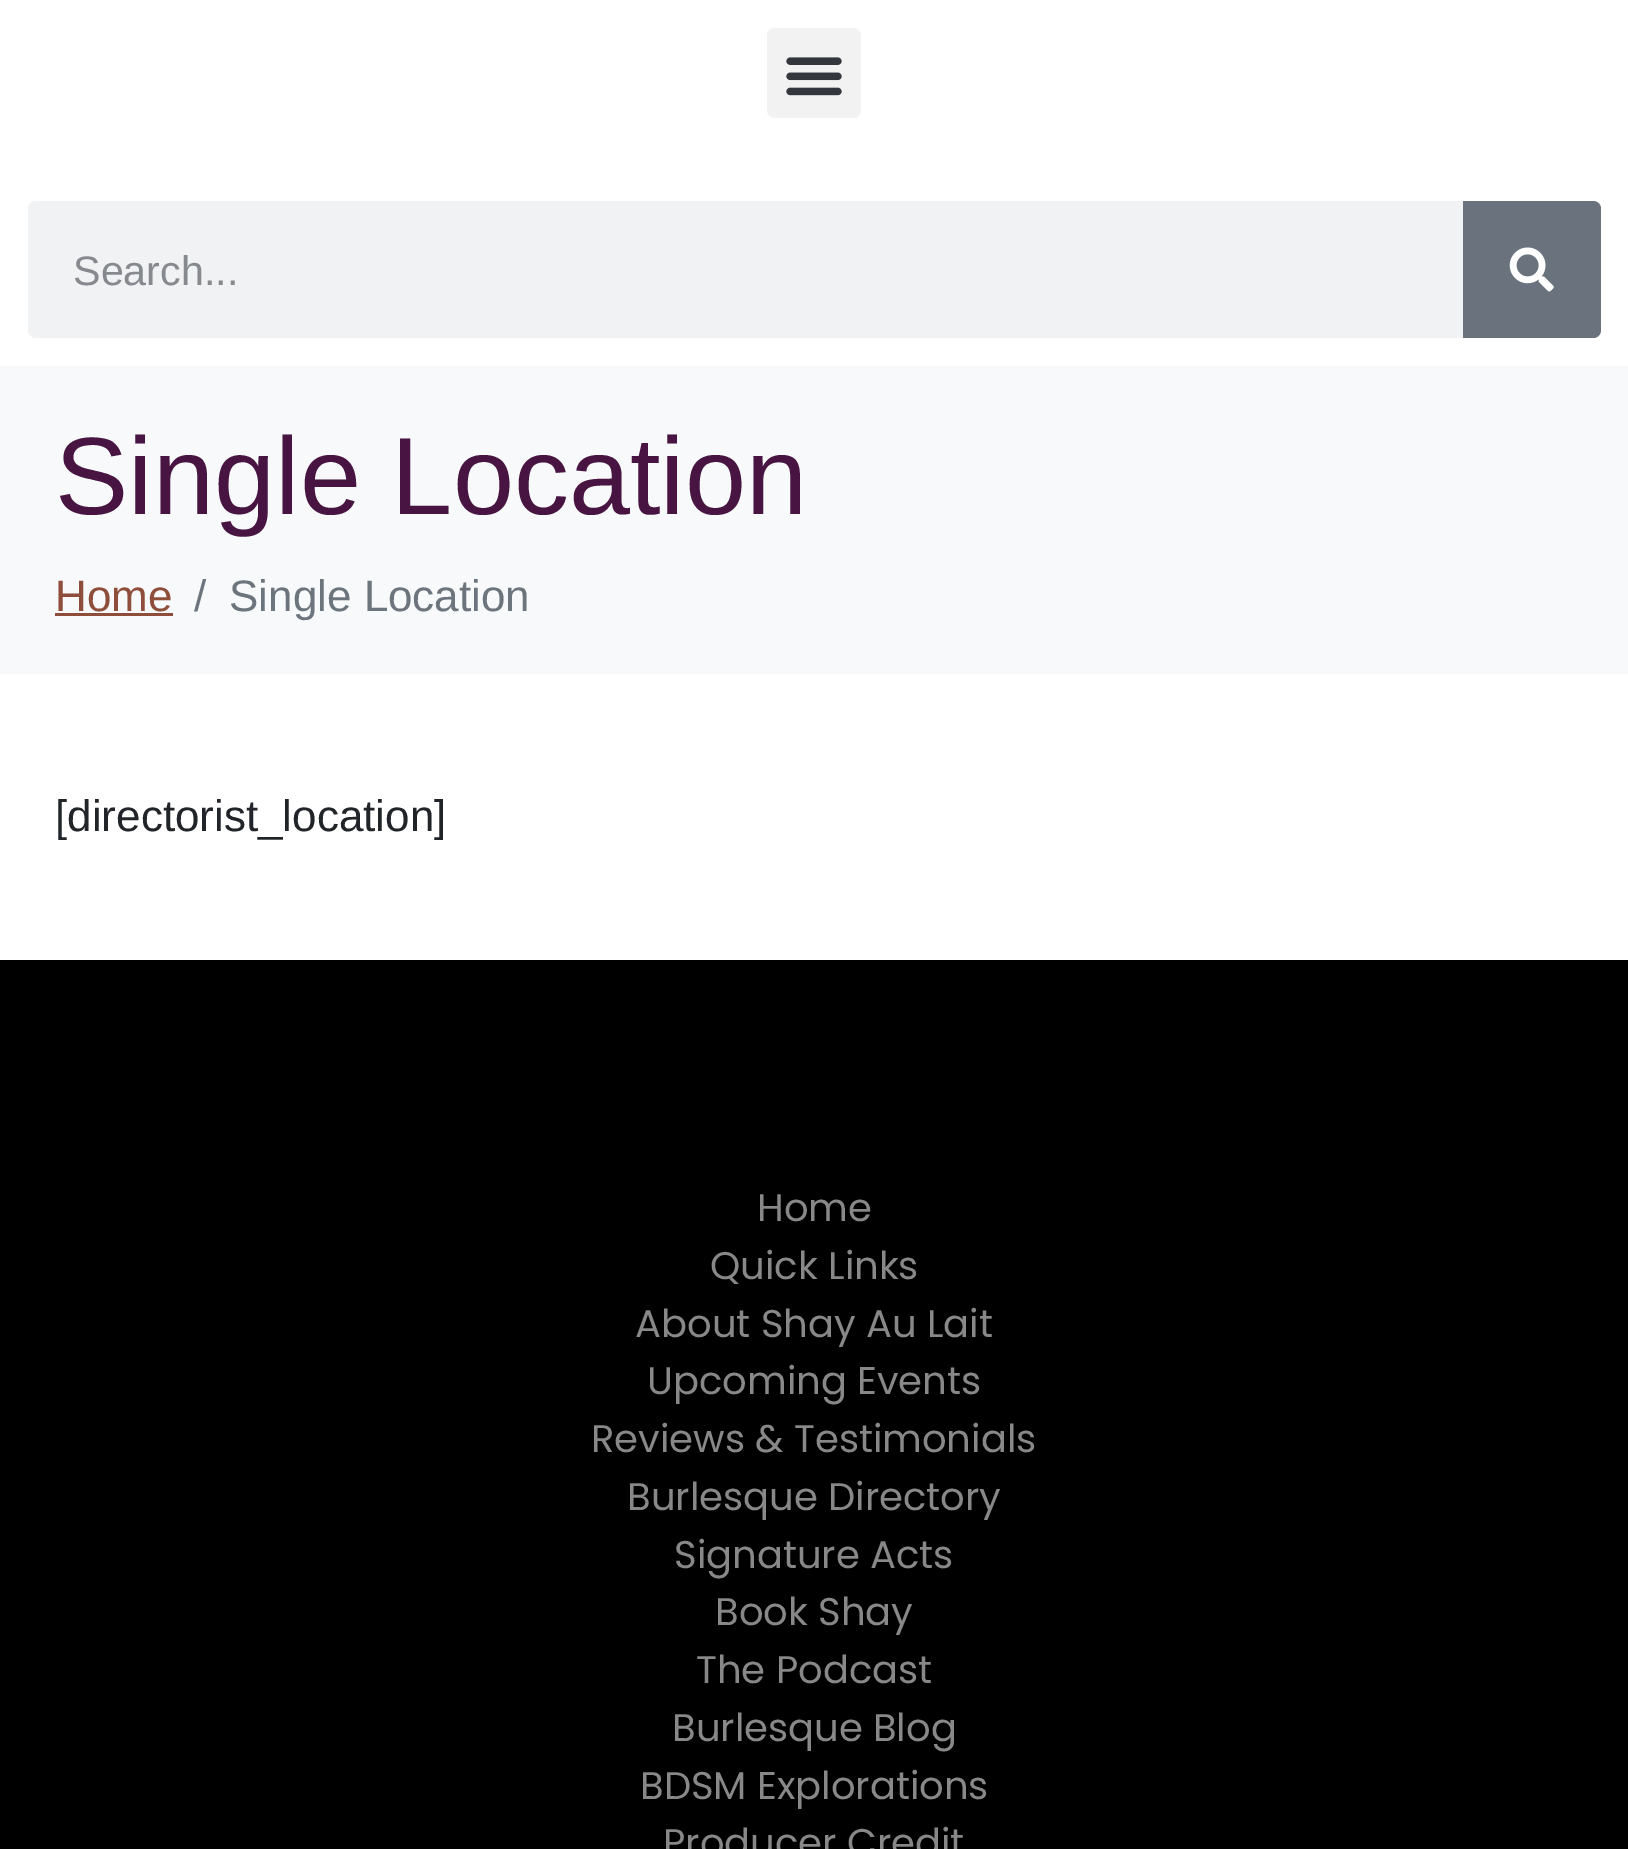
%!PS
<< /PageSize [1628 1849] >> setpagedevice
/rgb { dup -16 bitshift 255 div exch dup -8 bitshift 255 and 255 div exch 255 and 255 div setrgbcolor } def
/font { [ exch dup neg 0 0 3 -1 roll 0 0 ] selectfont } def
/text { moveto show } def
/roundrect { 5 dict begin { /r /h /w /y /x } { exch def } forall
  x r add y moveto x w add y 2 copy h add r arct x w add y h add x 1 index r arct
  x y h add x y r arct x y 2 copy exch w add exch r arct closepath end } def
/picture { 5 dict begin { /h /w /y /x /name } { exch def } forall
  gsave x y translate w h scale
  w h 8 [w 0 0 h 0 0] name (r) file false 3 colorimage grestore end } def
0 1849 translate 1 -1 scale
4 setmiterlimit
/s1 { /LiberationSans-Regular 41.25 font 16#868A8E rgb } def
/s2 { /LiberationSans-Regular 110 font 16#481442 rgb } def
/s3 { /LiberationSans-Regular 44 font 16#8F4E3B rgb } def
/s4 { /LiberationSans-Regular 44 font 16#6C757D rgb } def
/s5 { /LiberationSans-Regular 44 font 16#212529 rgb } def
/s6 { /Poppins-Regular 38.5 font 16#888888 rgb } def
16#FFFFFF rgb
0 0 1628 1849 rectfill
16#F2F2F2 rgb
767 28 94 90 8 roundrect fill
(pic1.raw) 786 57 56 39 picture
16#F1F2F3 rgb
28 201 1573 137 8 roundrect fill
s1
(Search...) 73 285 text
16#69727D rgb
1463 201 moveto 1593 201 lineto 1597.5 201 1601 204.5 1601 209 curveto 1601 330 lineto 1601 334.5 1597.5 338 1593 338 curveto 1463 338 lineto closepath fill
(pic2.raw) 1509 247 45 45 picture
16#F8F9FA rgb
0 366 1628 308 rectfill
s2
(Single Location) 55 514 text
s3
(Home) 55 611 text
55 613 118 3 rectfill
s4
(/) 194 611 text
(Single Location) 229 611 text
s5
([directorist_location]) 55 831 text
16#000000 rgb
0 960 1628 889 rectfill
s6
(Home) 757 1221 text
(Quick Links) 710 1279 text
(About Shay Au Lait) 635 1337 text
(Upcoming Events) 647 1394 text
(Reviews & Testimonials) 591 1452 text
(Burlesque Directory) 627 1510 text
(Signature Acts) 674 1568 text
(Book Shay) 715 1625 text
(The Podcast) 696 1683 text
(Burlesque Blog) 672 1741 text
(BDSM Explorations) 640 1799 text
(Producer Credit) 663 1856 text
showpage
